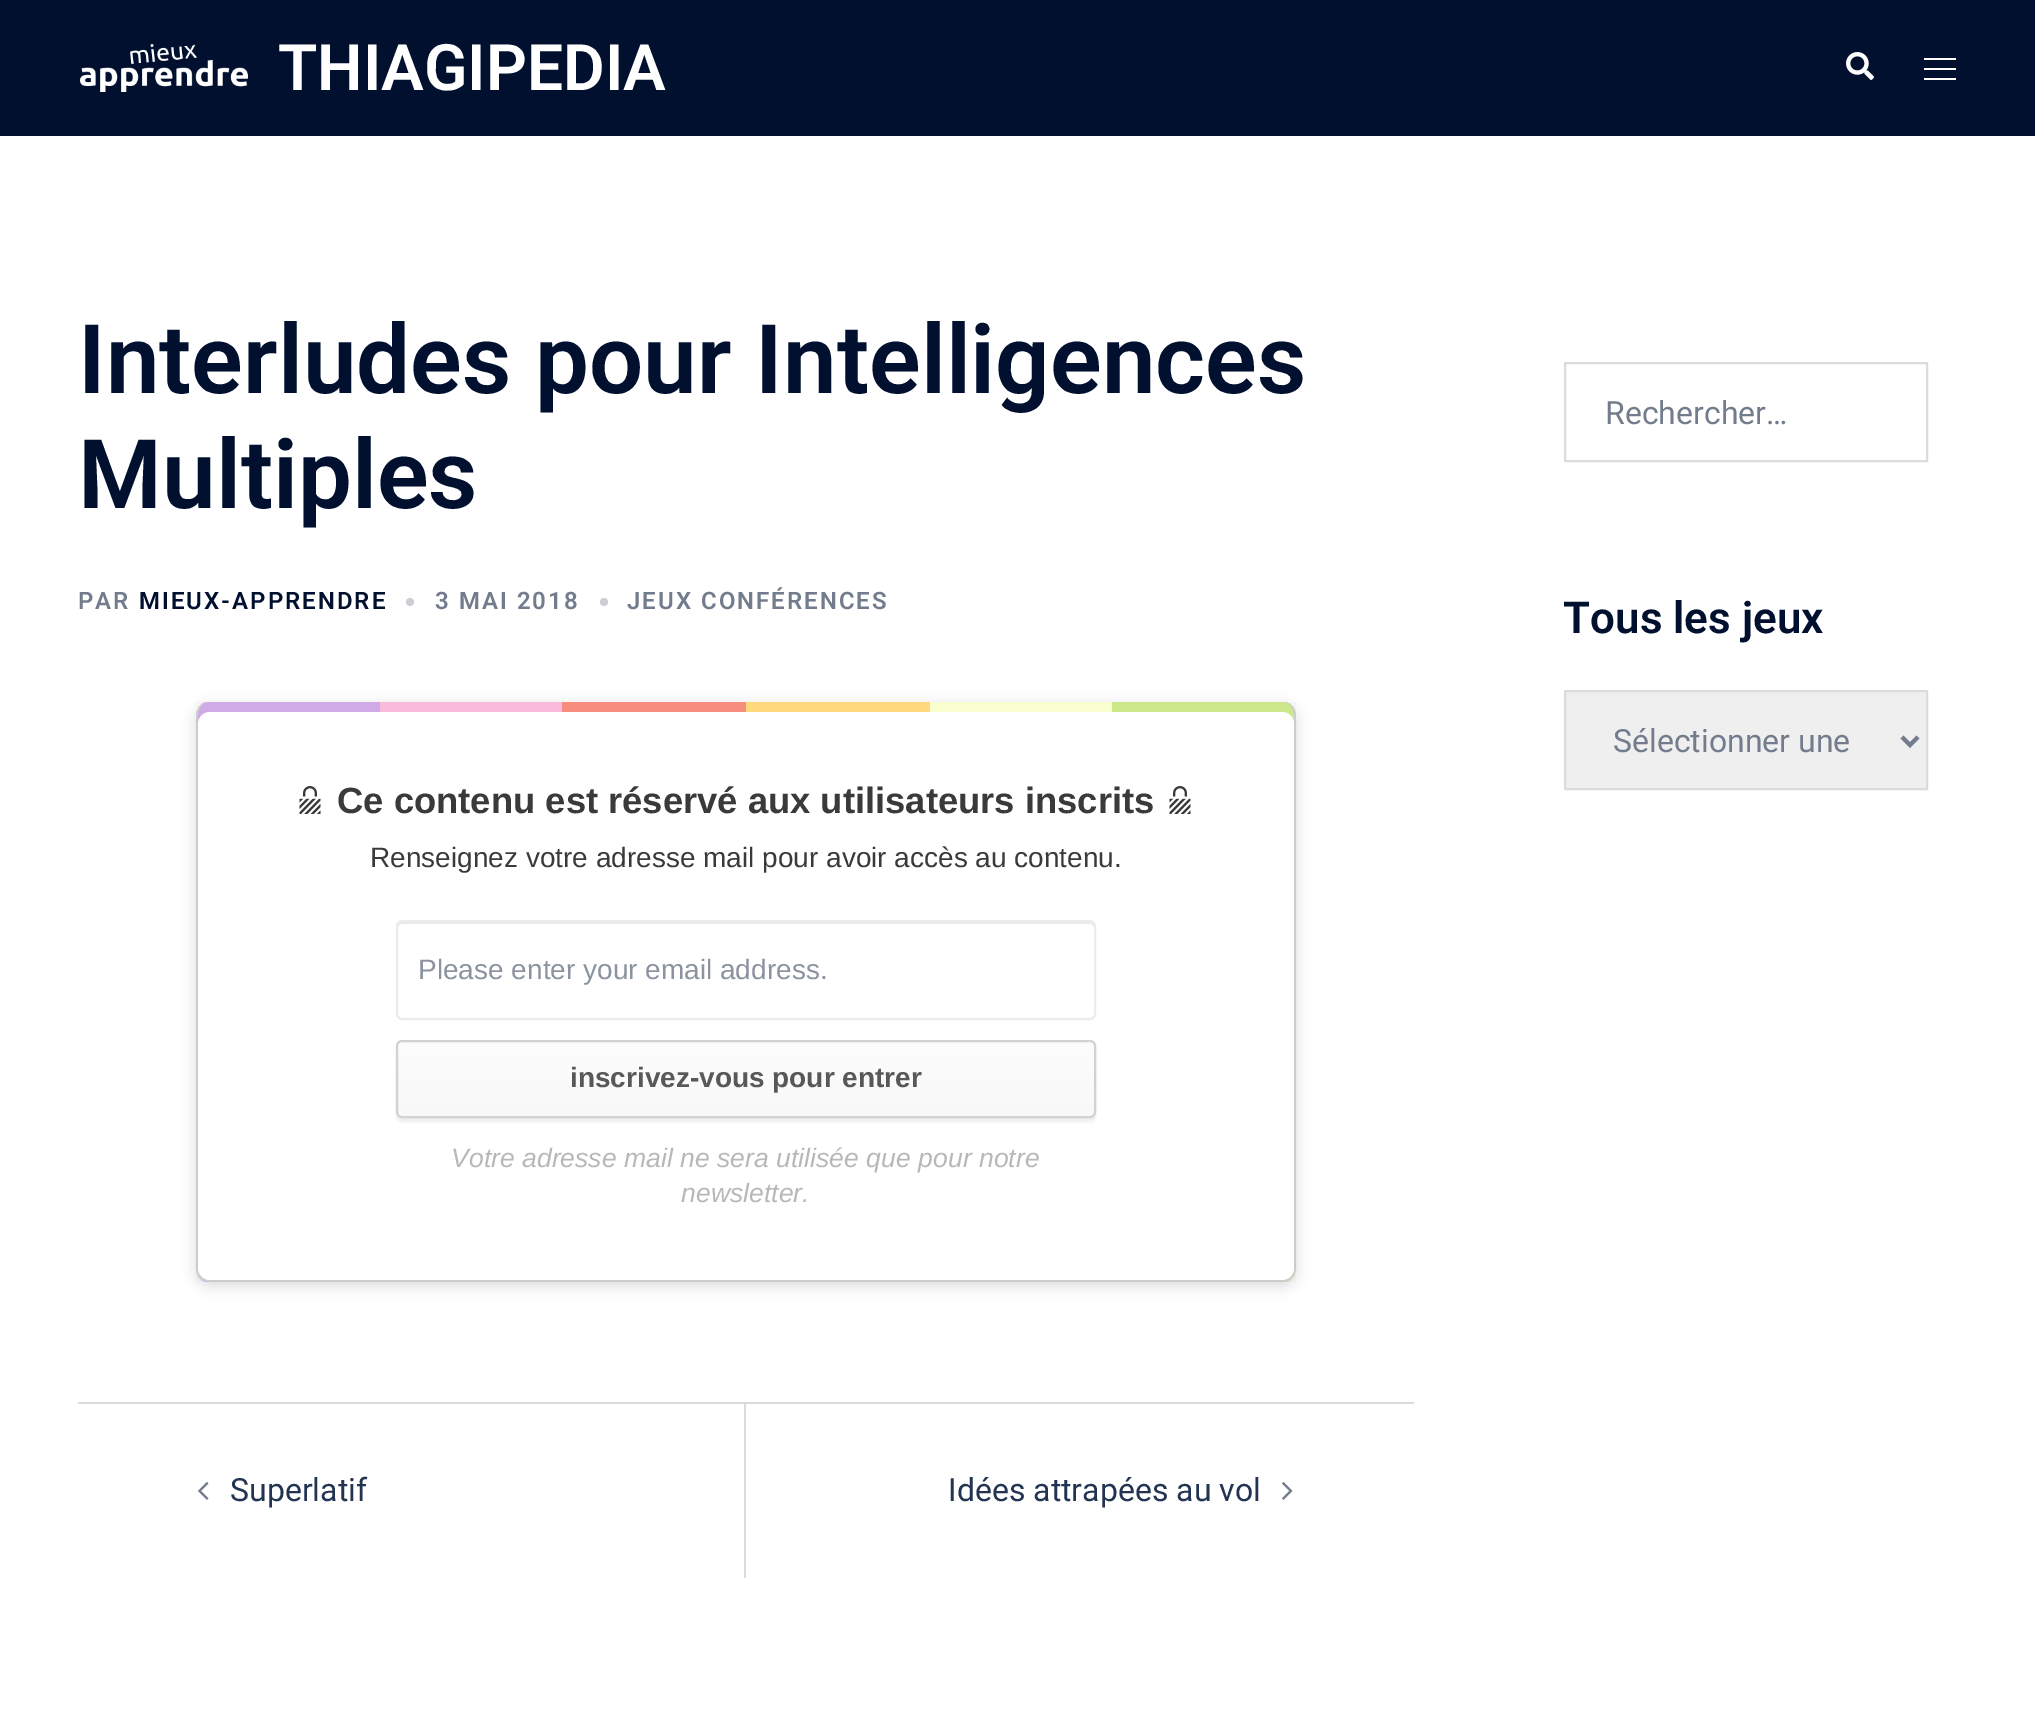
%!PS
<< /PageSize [2035 1709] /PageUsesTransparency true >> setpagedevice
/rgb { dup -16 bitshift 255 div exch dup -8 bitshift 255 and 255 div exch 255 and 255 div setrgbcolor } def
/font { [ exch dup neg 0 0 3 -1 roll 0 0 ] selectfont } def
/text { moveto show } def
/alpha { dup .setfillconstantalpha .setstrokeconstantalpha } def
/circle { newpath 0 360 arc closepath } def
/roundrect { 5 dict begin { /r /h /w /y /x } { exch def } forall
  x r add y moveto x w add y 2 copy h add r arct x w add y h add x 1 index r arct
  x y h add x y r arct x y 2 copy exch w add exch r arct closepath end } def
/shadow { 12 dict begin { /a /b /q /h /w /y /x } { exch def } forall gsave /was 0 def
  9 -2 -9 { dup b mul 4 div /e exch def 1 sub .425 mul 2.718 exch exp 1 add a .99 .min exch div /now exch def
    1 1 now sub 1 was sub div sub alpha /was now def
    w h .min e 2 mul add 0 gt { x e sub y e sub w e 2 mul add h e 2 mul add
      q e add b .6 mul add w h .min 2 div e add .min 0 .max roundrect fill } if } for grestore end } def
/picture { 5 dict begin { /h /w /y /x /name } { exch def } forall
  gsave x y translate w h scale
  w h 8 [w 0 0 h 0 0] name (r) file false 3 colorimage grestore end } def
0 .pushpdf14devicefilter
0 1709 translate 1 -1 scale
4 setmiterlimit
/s1 { /Roboto-SemiBold 64 font 16#FFFFFF rgb } def
/s2 { /Roboto-SemiBold 96 font 16#00102E rgb } def
/s3 { /LiberationSans-Bold 36.4 font 16#3A3A3A rgb } def
/s4 { /LiberationSans-Regular 28 font 16#3A3A3A rgb } def
/s5 { /LiberationSans-Regular 28 font 16#8B92A0 rgb } def
/s6 { /LiberationSans-Bold 28 font 16#585858 rgb } def
/s7 { /LiberationSans-Italic 26.6 font 16#B8B8B8 rgb } def
/s8 { /Roboto-Regular 32 font 16#233452 rgb } def
/s9 { /Roboto-Regular 32 font 16#737C8C rgb } def
/s10 { /Roboto-SemiBold 44 font 16#00102E rgb } def
16#FFFFFF rgb
0 0 2035 1709 rectfill
16#00102E rgb
0 0 2035 136 rectfill
(pic1.raw) 80 44 168 48 picture
s1
(THIAGIPEDIA) 278 90 text
(pic2.raw) 1846 52 28 28 picture
1924 58 32 2 rectfill
1924 68 32 2 rectfill
1924 78 32 2 rectfill
s2
(Interludes pour Intelligences) 78 393 text
(Multiples) 78 508 text
/Roboto-SemiBold 24 font
16#737C8C rgb
78 609 moveto 2 0 (PAR) ashow
16#00102E rgb
139 609 moveto 2 0 (MIEUX-APPRENDRE) ashow
16#CCCFD5 rgb
410 602 4 circle fill
16#737C8C rgb
435 609 moveto 2 0 (3 MAI 2018) ashow
16#CCCFD5 rgb
604 602 4 circle fill
16#737C8C rgb
627 609 moveto 2 0 (JEUX CONFÉRENCES) ashow
16#FAFAFA rgb
196 702 1100 580 rectfill
16#2B2B2B rgb
196 706 1100 580 14 7 0.17 shadow
gsave
196 702 1100 580 14 roundrect clip newpath
16#CDE88A rgb
198 702 1096 580 rectfill
16#F9FFCF rgb
198 702 914 580 rectfill
16#FFD97B rgb
198 702 732 580 rectfill
16#F68D7F rgb
198 702 548 580 rectfill
16#F8BBDB rgb
198 702 364 580 rectfill
16#D0AAE6 rgb
198 702 182 580 rectfill
grestore
16#CCCCCC rgb
210 702 moveto 1282 702 lineto 1290 702 1296 708 1296 716 curveto 1296 1268 lineto 1296 1276 1290 1282 1282 1282 curveto 210 1282 lineto 202 1282 196 1276 196 1268 curveto 196 716 lineto 196 708 202 702 210 702 curveto closepath 210 702 moveto 1282 702 lineto 1289 702 1294 708 1294 716 curveto 1294 1268 lineto 1294 1275 1289 1280 1282 1280 curveto 210 1280 lineto 203 1280 198 1275 198 1268 curveto 198 716 lineto 198 708 203 702 210 702 curveto closepath eofill
16#FFFFFF rgb
198 712 1096 568 12 roundrect fill
(pic3.raw) 299 786 22 28 picture
s3
(Ce contenu est réservé aux utilisateurs inscrits) 337 813 text
(pic3.raw) 1169 786 22 28 picture
s4
(Renseignez votre adresse mail pour avoir accès au contenu.) 370 867 text
16#EAEAEA rgb
402 924 moveto 1090 924 lineto 1092 924 1094 926 1094 928 curveto 1094 926 lineto 1094 924 1092 922 1090 922 curveto 402 922 lineto 400 922 398 924 398 926 curveto 398 928 lineto 398 926 400 924 402 924 curveto closepath fill
16#ECECEC rgb
2 setlinewidth
397 921 698 98 5 roundrect stroke
s5
(Please enter your email address.) 418 979 text
16#2B2B2B rgb
396 1044 700 78 6 1 0.07 shadow
gsave
396 1040 700 78 6 roundrect clip newpath
gsave 396 1042 moveto 1096 1042 lineto 1096 1116 lineto 396 1116 lineto closepath clip newpath
<< /ShadingType 2 /ColorSpace /DeviceRGB /Coords [746 1042 746 1116] /Extend [true true] /Function << /FunctionType 2 /Domain [0 1] /C0 [0.992 0.992 0.992] /C1 [0.973 0.973 0.973] /N 1 >> >> shfill grestore
grestore
16#D2D2D2 rgb
397 1041 698 76 5 roundrect stroke
s6
(inscrivez-vous pour entrer) 570 1087 text
s7
(Votre adresse mail ne sera utilisée que pour notre) 451 1167 text
(newsletter.) 681 1202 text
16#DBDBDB rgb
78 1402 1336 2 rectfill
744 1404 2 174 rectfill
(pic4.raw) 198 1482 11 18 picture
s8
(Superlatif) 230 1501 text
(Idées attrapées au vol) 948 1501 text
(pic5.raw) 1282 1482 11 18 picture
16#DBDBDB rgb
1565 363 362 98 rectstroke
s9
(Rechercher…) 1605 424 text
s10
(Tous les jeux) 1563 633 text
16#EFEFEF rgb
1565 691 moveto 1927 691 lineto 1927 789 lineto 1565 789 lineto closepath gsave fill grestore
16#DBDBDB rgb
stroke
16#737C8C rgb
4 setlinewidth
1902 737 moveto 1910 745 lineto 1918 737 lineto stroke
s9
(Sélectionner une) 1613 752 text
.poppdf14devicefilter showpage
